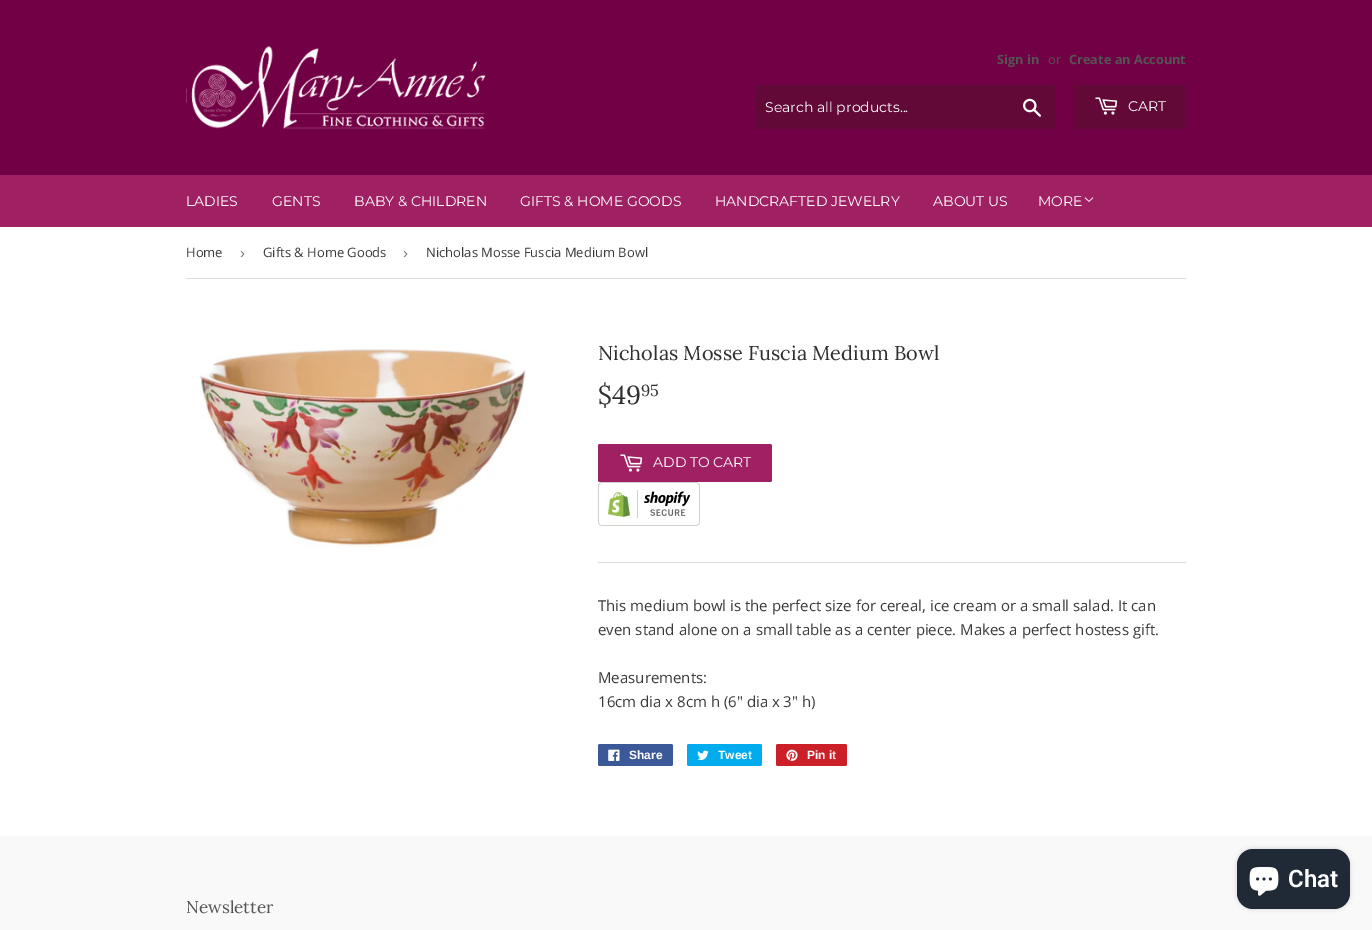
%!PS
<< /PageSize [1372 930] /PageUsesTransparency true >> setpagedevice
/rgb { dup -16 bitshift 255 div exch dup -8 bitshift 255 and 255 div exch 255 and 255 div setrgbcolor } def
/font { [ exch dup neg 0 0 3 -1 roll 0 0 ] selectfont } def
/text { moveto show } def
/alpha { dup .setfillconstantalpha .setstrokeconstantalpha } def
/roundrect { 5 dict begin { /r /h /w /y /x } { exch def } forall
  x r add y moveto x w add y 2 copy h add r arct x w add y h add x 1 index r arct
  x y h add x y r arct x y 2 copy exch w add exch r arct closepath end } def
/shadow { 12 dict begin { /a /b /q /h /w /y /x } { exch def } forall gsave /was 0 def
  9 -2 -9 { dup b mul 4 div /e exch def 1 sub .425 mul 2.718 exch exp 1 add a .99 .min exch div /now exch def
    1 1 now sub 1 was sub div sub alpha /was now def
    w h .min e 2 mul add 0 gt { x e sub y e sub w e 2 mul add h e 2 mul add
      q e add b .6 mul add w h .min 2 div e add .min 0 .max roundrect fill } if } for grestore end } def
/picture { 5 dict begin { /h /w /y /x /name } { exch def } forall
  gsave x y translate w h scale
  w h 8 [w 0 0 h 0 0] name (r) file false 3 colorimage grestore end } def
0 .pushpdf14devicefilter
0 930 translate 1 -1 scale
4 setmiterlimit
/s1 { /OpenSans-Bold 12.75 font 16#545454 rgb } def
/s2 { /OpenSans-Regular 12.75 font 16#545454 rgb } def
/s3 { /Montserrat-Thin 14 font 16#FFFFFF rgb } def
/s4 { /OpenSans-Regular 13 font 16#393939 rgb } def
/s5 { /LiberationSans-Regular 15 font 16#767676 rgb } def
/s6 { /Lora-Regular 20 font 16#2F2F2F rgb } def
/s7 { /Lora-Regular 26 font 16#2F2F2F rgb } def
/s8 { /Lora-Regular 16 font 16#2F2F2F rgb } def
/s9 { /OpenSans-Regular 15 font 16#393939 rgb } def
/s10 { /LiberationSans-Bold 12 font 16#FFFFFF rgb } def
/s11 { /Roboto-SemiBold 24 font 16#FFFFFF rgb } def
/s12 { /Lora-Regular 17 font 16#545454 rgb } def
16#FFFFFF rgb
0 0 1372 930 rectfill
16#720045 rgb
0 0 1372 175 rectfill
(pic1.raw) 186 45 300 84 picture
s1
(Sign in) 997 64 text
s2
(or) 1048 64 text
s1
(Create an Account) 1069 64 text
16#620938 rgb
755 85 300 44 2 roundrect fill
s3
(Search all products...) 765 112 text
(pic2.raw) 1023 98 18 19 picture
16#620938 rgb
1074 85 112 44 2 roundrect fill
(pic3.raw) 1095 97 23 18 picture
s3
(CART) 1128 111 text
16#9F2063 rgb
0 175 1372 52 rectfill
s3
(LADIES) 186 206 text
(GENTS) 272 206 text
(BABY & CHILDREN) 354 206 text
(GIFTS & HOME GOODS) 520 206 text
(HANDCRAFTED JEWELRY) 715 206 text
(ABOUT US) 933 206 text
(MORE) 1038 206 text
(pic4.raw) 1084 197 10 5 picture
16#DEDEDE rgb
186 278 1000 1 rectfill
s4
(Home) 186 257 text
s5
(›) 240 258 text
s4
(Gifts & Home Goods) 263 257 text
s5
(›) 403 258 text
s4
(Nicholas Mosse Fuscia Medium Bowl) 426 257 text
(pic5.raw) 199 349 328 199 picture
s6
(Nicholas Mosse Fuscia Medium Bowl) 598 360 text
s7
($49) 598 404 text
s8
(95) 641 396 text
16#9F2063 rgb
598 444 174 38 2 roundrect fill
(pic6.raw) 620 454 23 18 picture
s3
(ADD TO CART) 653 467 text
(pic7.raw) 598 482 102 44 picture
16#DEDEDE rgb
598 562 588 1 rectfill
s9
(This medium bowl is the perfect size for cereal, ice cream or a small salad. It can) 598 611 text
(even stand alone on a small table as a center piece. Makes a perfect hostess gift.) 598 635 text
(Measurements:) 598 683 text
(16cm dia x 8cm h \(6" dia x 3" h\)) 598 707 text
16#3B5998 rgb
598 744 75 22 2 roundrect fill
(pic8.raw) 608 749 12 12 picture
s10
(Share) 629 759 text
16#00ACED rgb
687 744 75 22 2 roundrect fill
(pic9.raw) 697 750 12 10 picture
s10
(Tweet) 718 759 text
16#CB2027 rgb
776 744 71 22 2 roundrect fill
(pic10.raw) 786 749 12 12 picture
s10
(Pin it) 807 759 text
16#F9F9F9 rgb
0 836 1372 94 rectfill
16#000000 rgb
1237 849 113 60 16 2.5 0.15 shadow
16#202A36 rgb
1237 849 113 60 16 roundrect fill
(pic11.raw) 1249 867 30 29 picture
s11
(Chat) 1288 887 text
s12
(Newsletter) 186 913 text
.poppdf14devicefilter showpage
